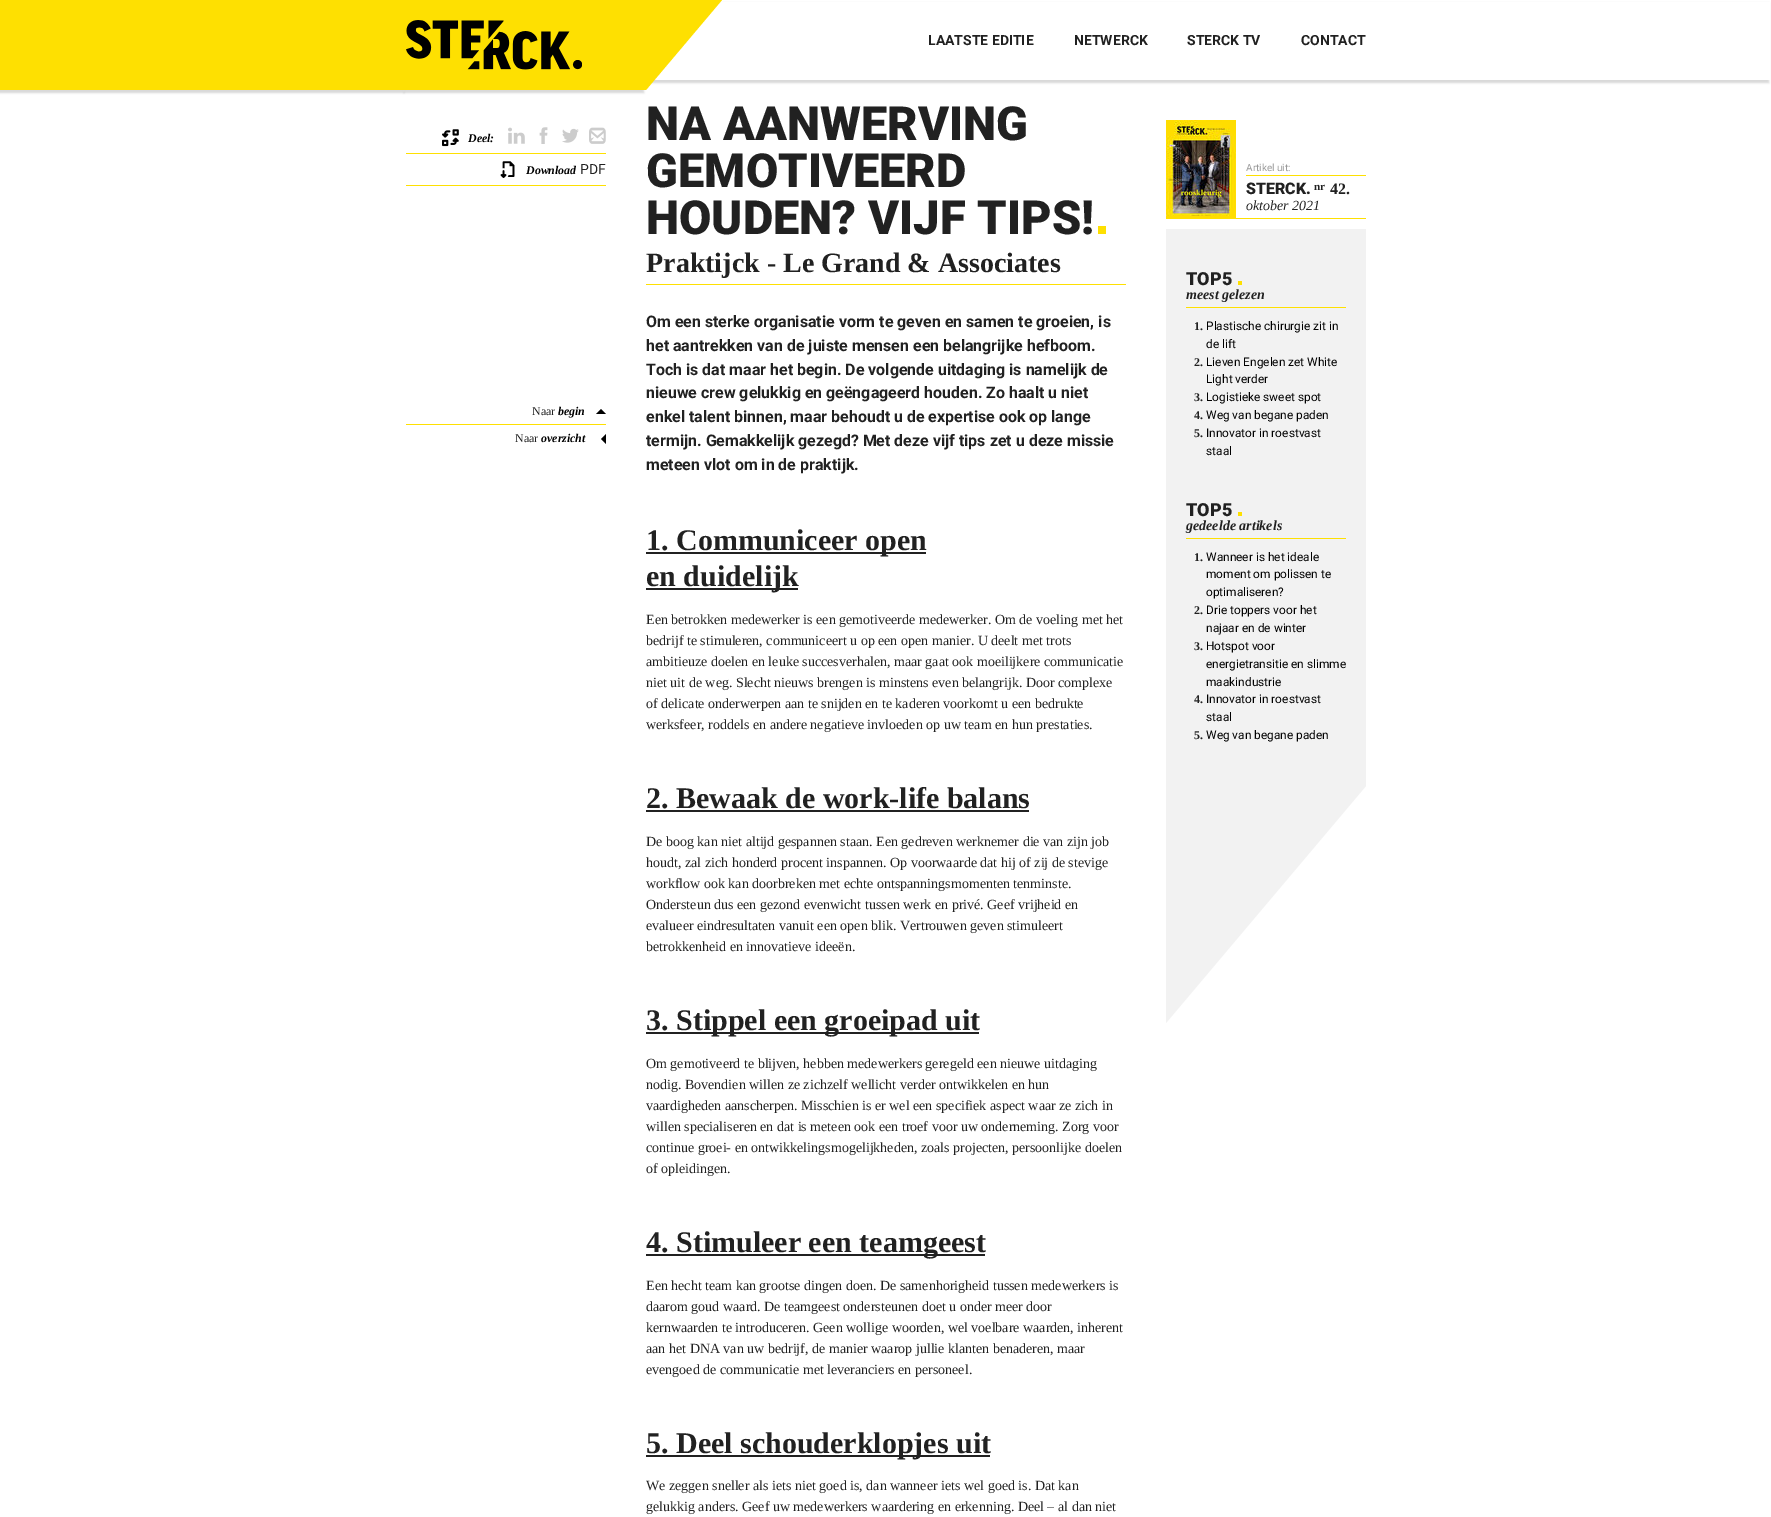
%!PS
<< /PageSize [1771 1517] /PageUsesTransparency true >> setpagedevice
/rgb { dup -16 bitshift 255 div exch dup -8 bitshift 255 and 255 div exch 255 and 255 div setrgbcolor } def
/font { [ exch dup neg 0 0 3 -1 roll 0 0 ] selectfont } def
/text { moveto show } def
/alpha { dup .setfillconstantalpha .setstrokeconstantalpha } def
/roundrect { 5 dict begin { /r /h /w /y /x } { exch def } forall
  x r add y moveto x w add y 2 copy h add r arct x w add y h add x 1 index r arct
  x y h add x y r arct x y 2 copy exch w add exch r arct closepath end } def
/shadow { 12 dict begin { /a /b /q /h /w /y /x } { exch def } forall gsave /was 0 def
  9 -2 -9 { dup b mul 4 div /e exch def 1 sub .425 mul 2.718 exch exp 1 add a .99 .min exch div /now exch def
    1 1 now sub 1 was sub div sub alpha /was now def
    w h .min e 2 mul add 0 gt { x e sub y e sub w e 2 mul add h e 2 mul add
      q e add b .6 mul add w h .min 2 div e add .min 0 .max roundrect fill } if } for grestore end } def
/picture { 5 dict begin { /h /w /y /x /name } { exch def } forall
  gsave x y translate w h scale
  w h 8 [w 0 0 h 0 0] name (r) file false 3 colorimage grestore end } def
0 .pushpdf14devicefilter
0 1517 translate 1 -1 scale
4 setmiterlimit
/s1 { /Roboto-Bold 14 font 16#212121 rgb } def
/s2 { /LiberationSerif-BoldItalic 11.9 font 16#000000 rgb } def
/s3 { /Roboto-Regular 14 font 16#212121 rgb } def
/s4 { /LiberationSerif-Regular 11.9 font 16#212121 rgb } def
/s5 { /Roboto-Black 47 font 16#212121 rgb } def
/s6 { /LiberationSerif-Bold 28 font 16#212121 rgb } def
/s7 { /Roboto-Bold 15.95 font 16#212121 rgb } def
/s8 { /LiberationSerif-Bold 30 font 16#212121 rgb } def
/s9 { /LiberationSerif-Regular 14 font 16#212121 rgb } def
/s10 { /Roboto-Regular 10 font 16#999999 rgb } def
/s11 { /Roboto-Black 15.95 font 16#212121 rgb } def
/s12 { /LiberationSerif-Bold 11 font 16#212121 rgb } def
/s13 { /LiberationSerif-Bold 15.95 font 16#212121 rgb } def
/s14 { /LiberationSerif-Italic 14 font 16#212121 rgb } def
/s15 { /Roboto-Black 18 font 16#212121 rgb } def
/s16 { /LiberationSerif-BoldItalic 14 font 16#212121 rgb } def
/s17 { /LiberationSerif-Bold 11.9 font 16#212121 rgb } def
/s18 { /Roboto-Regular 11.9 font 16#000000 rgb } def
16#FFFFFF rgb
0 0 1771 1517 rectfill
16#000000 rgb
404 3 240 90 0 1 0.15 shadow
-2 3 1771 80 0 1 0.15 shadow
16#FEE001 rgb
406 0 240 90 rectfill
(pic1.raw) 406 20 176 50 picture
16#000000 rgb
-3 3 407 90 0 1 0.15 shadow
16#FEE001 rgb
0 0 406 90 rectfill
16#FFFFFF rgb
654 2 1116 78 rectfill
16#FEE001 rgb
646 0 moveto 722 0 lineto 646 90 lineto closepath fill
s1
(LAATSTE EDITIE) 928 45 text
(NETWERCK) 1074 45 text
(STERCK TV) 1187 45 text
(CONTACT) 1301 45 text
16#FEE001 rgb
406 153 200 1 rectfill
(pic2.raw) 442 129 17 18 picture
s2
(Deel:) 468 142 text
(pic3.raw) 508 127 17 17 picture
(pic4.raw) 539 127 9 17 picture
(pic5.raw) 562 128 17 15 picture
(pic6.raw) 589 127 17 17 picture
16#FEE001 rgb
406 185 200 1 rectfill
(pic7.raw) 500 161 15 17 picture
s2
(Download) 526 174 text
s3
(PDF) 580 174 text
16#FEE001 rgb
406 424 200 1 rectfill
s4
(Naar) 532 415 text
s2
(begin) 558 415 text
606 414 moveto 596 414 lineto 601 409 lineto closepath fill
s4
(Naar) 515 442 text
s2
(overzicht) 541 442 text
606 434 moveto 606 444 lineto 601 439 lineto closepath fill
16#FEE001 rgb
646 284 480 1 rectfill
s5
(NA AANWERVING) 646 140 text
(GEMOTIVEERD) 646 187 text
(HOUDEN? VIJF TIPS!) 646 234 text
16#FEE001 rgb
1098 226 8 8 rectfill
s6
(Praktijck - Le Grand & Associates) 646 272 text
s7
(Om een sterke organisatie vorm te geven en samen te groeien, is) 646 327 text
(het aantrekken van de juiste mensen een belangrijke hefboom.) 646 351 text
(Toch is dat maar het begin. De volgende uitdaging is namelijk de) 646 375 text
(nieuwe crew gelukkig en geëngageerd houden. Zo haalt u niet) 646 398 text
(enkel talent binnen, maar behoudt u de expertise ook op lange) 646 422 text
(termijn. Gemakkelijk gezegd? Met deze vijf tips zet u deze missie) 646 446 text
(meteen vlot om in de praktijk.) 646 470 text
646 552 280 2 rectfill
s8
(1. Communiceer open) 646 550 text
646 588 152 2 rectfill
(en duidelijk) 646 586 text
s9
(Een betrokken medewerker is een gemotiveerde medewerker. Om de voeling met het) 646 624 text
(bedrijf te stimuleren, communiceert u op een open manier. U deelt met trots) 646 645 text
(ambitieuze doelen en leuke succesverhalen, maar gaat ook moeilijkere communicatie) 646 666 text
(niet uit de weg. Slecht nieuws brengen is minstens even belangrijk. Door complexe) 646 687 text
(of delicate onderwerpen aan te snijden en te kaderen voorkomt u een bedrukte) 646 708 text
(werksfeer, roddels en andere negatieve invloeden op uw team en hun prestaties.) 646 729 text
s8
(2. Bewaak de work-life balans) 646 808 text
646 810 383 2 rectfill
s9
(De boog kan niet altijd gespannen staan. Een gedreven werknemer die van zijn job) 646 846 text
(houdt, zal zich honderd procent inspannen. Op voorwaarde dat hij of zij de stevige) 646 867 text
(workflow ook kan doorbreken met echte ontspanningsmomenten tenminste.) 646 888 text
(Ondersteun dus een gezond evenwicht tussen werk en privé. Geef vrijheid en) 646 909 text
(evalueer eindresultaten vanuit een open blik. Vertrouwen geven stimuleert) 646 930 text
(betrokkenheid en innovatieve ideeën.) 646 951 text
646 1032 333 2 rectfill
s8
(3. Stippel een groeipad uit) 646 1030 text
s9
(Om gemotiveerd te blijven, hebben medewerkers geregeld een nieuwe uitdaging) 646 1068 text
(nodig. Bovendien willen ze zichzelf wellicht verder ontwikkelen en hun) 646 1089 text
(vaardigheden aanscherpen. Misschien is er wel een specifiek aspect waar ze zich in) 646 1110 text
(willen specialiseren en dat is meteen ook een troef voor uw onderneming. Zorg voor) 646 1131 text
(continue groei- en ontwikkelingsmogelijkheden, zoals projecten, persoonlijke doelen) 646 1152 text
(of opleidingen.) 646 1173 text
646 1254 339 2 rectfill
s8
(4. Stimuleer een teamgeest) 646 1252 text
s9
(Een hecht team kan grootse dingen doen. De samenhorigheid tussen medewerkers is) 646 1290 text
(daarom goud waard. De teamgeest ondersteunen doet u onder meer door) 646 1311 text
(kernwaarden te introduceren. Geen wollige woorden, wel voelbare waarden, inherent) 646 1332 text
(aan het DNA van uw bedrijf, de manier waarop jullie klanten benaderen, maar) 646 1353 text
(evengoed de communicatie met leveranciers en personeel.) 646 1374 text
646 1455 344 2 rectfill
s8
(5. Deel schouderklopjes uit) 646 1453 text
s9
(We zeggen sneller als iets niet goed is, dan wanneer iets wel goed is. Dat kan) 646 1490 text
(gelukkig anders. Geef uw medewerkers waardering en erkenning. Deel – al dan niet) 646 1511 text
16#FEE001 rgb
1166 218 200 1 rectfill
(pic8.raw) 1166 120 70 98 picture
s10
(Artikel uit:) 1246 171 text
16#FEE001 rgb
1246 175 120 1 rectfill
s11
(STERCK.) 1246 194 text
s12
(nr) 1314 190 text
s13
(42.) 1330 194 text
s14
(oktober 2021) 1246 210 text
16#F2F2F2 rgb
1166 229 200 557 rectfill
16#FEE001 rgb
1186 307 160 1 rectfill
s15
(TOP5) 1186 285 text
16#FEE001 rgb
1238 281 4 4 rectfill
s16
(meest gelezen) 1186 299 text
s17
(1.) 1194 330 text
s18
(Plastische chirurgie zit in) 1206 330 text
(de lift) 1206 348 text
s17
(2.) 1194 366 text
s18
(Lieven Engelen zet White) 1206 366 text
(Light verder) 1206 383 text
s17
(3.) 1194 401 text
s18
(Logistieke sweet spot) 1206 401 text
s17
(4.) 1194 419 text
s18
(Weg van begane paden) 1206 419 text
s17
(5.) 1194 437 text
s18
(Innovator in roestvast) 1206 437 text
(staal) 1206 455 text
16#FEE001 rgb
1186 538 160 1 rectfill
s15
(TOP5) 1186 516 text
16#FEE001 rgb
1238 512 4 4 rectfill
s16
(gedeelde artikels) 1186 530 text
s17
(1.) 1194 561 text
s18
(Wanneer is het ideale) 1206 561 text
(moment om polissen te) 1206 578 text
(optimaliseren?) 1206 596 text
s17
(2.) 1194 614 text
s18
(Drie toppers voor het) 1206 614 text
(najaar en de winter) 1206 632 text
s17
(3.) 1194 650 text
s18
(Hotspot voor) 1206 650 text
(energietransitie en slimme) 1206 668 text
(maakindustrie) 1206 686 text
s17
(4.) 1194 703 text
s18
(Innovator in roestvast) 1206 703 text
(staal) 1206 721 text
s17
(5.) 1194 739 text
s18
(Weg van begane paden) 1206 739 text
16#F2F2F2 rgb
1166 786 moveto 1366 786 lineto 1166 1023 lineto closepath fill
.poppdf14devicefilter showpage
